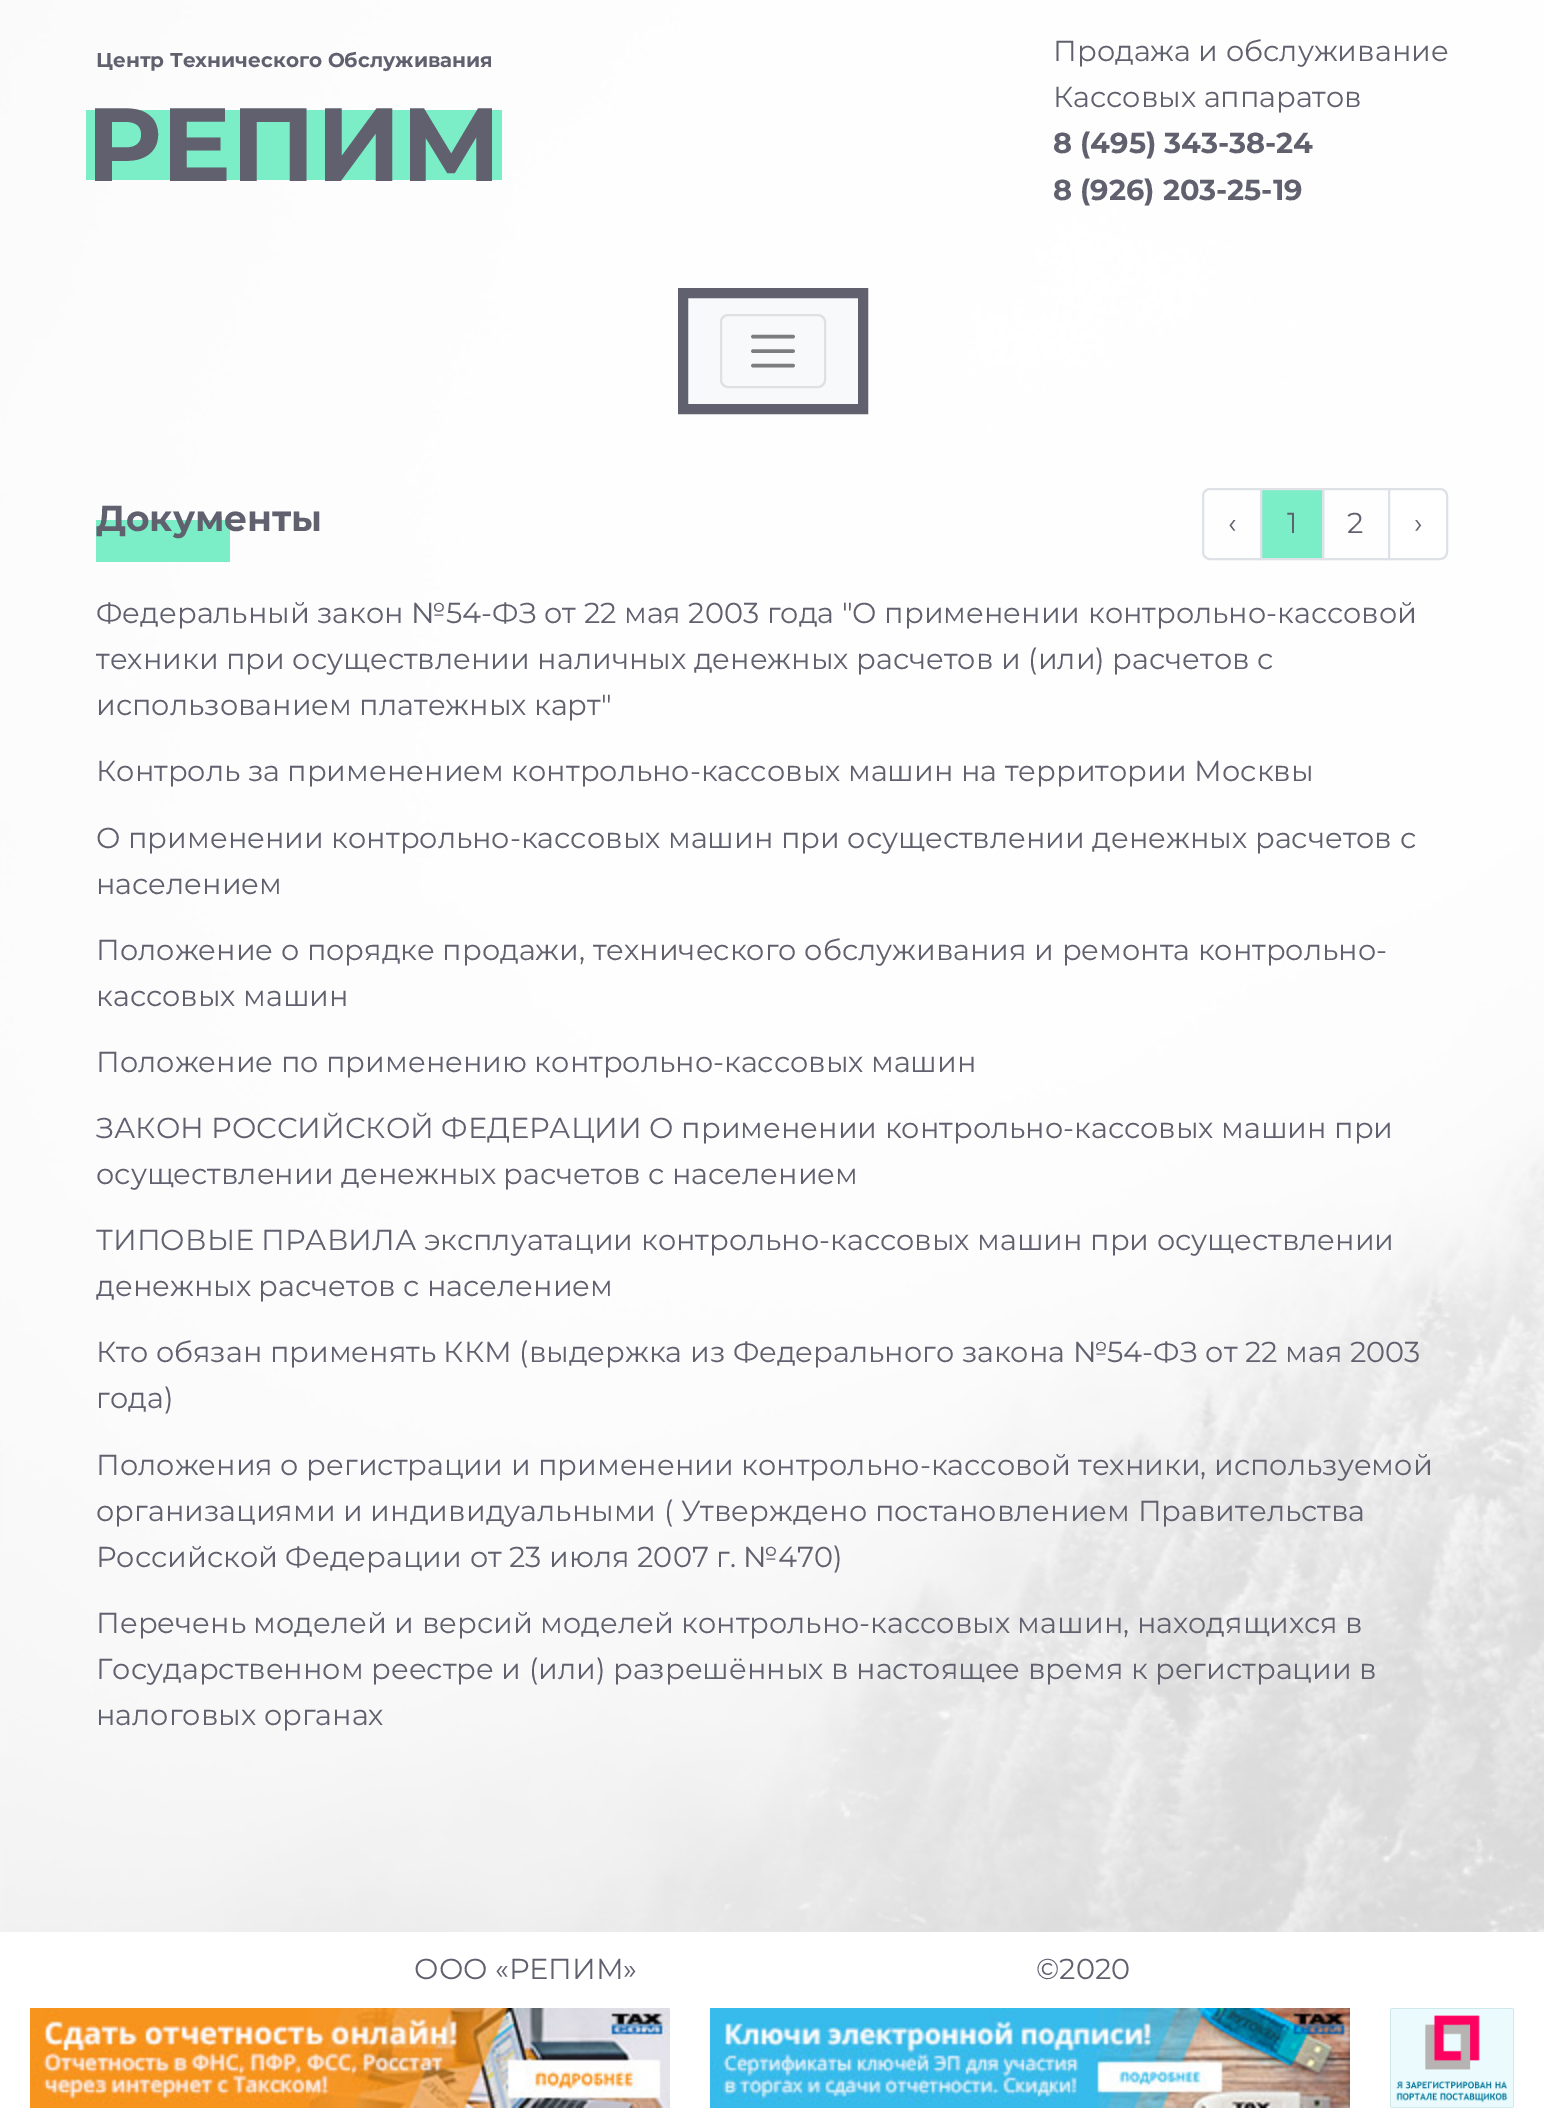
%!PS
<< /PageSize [1544 2124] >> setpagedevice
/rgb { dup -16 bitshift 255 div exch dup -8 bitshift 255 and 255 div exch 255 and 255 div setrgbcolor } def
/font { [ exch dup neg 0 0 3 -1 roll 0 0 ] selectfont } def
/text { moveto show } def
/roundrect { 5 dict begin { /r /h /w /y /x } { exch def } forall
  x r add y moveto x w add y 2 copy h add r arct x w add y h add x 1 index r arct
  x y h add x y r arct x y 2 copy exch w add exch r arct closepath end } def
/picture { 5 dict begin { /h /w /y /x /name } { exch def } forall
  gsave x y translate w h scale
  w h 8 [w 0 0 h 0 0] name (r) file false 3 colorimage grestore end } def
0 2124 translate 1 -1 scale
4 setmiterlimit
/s1 { /Montserrat-Bold 20 font 16#60606E rgb } def
/s2 { /Montserrat-Bold 104 font 16#60606E rgb } def
/s3 { /Montserrat-Regular 28.8 font 16#60606E rgb } def
/s4 { /Montserrat-Bold 28.8 font 16#60606E rgb } def
/s5 { /Montserrat-Bold 36 font 16#60606E rgb } def
16#FFFFFF rgb
0 0 1544 2124 rectfill
(pic1.raw) 0 0 1544 1932 picture
s1
(Центр Технического Обслуживания) 96 67 text
16#7BEEC7 rgb
86 110 416 70 rectfill
s2
(РЕПИМ) 86 181 text
s3
(Продажа и обслуживание) 1053 61 text
(Кассовых аппаратов) 1053 107 text
s4
(8 \(495\) 343-38-24) 1053 153 text
(8 \(926\) 203-25-19) 1053 200 text
16#F8F9FA rgb
688 298 170 106 rectfill
16#DFE0E1 rgb
2 setlinewidth
721 315 104 72 7 roundrect stroke
16#7C7D7D rgb
3.6 setlinewidth
1 setlinecap
753 336.5 moveto 793 336.5 lineto 753 351 moveto 793 351 lineto 753 365.5 moveto 793 365.5 lineto stroke
16#60606E rgb
10 setlinewidth
0 setlinecap
683 293 180 116 rectstroke
16#7BEEC7 rgb
96 520 134 42 rectfill
s5
(Документы) 96 531 text
16#DEE2E6 rgb
2 setlinewidth
1210 489 moveto 1261 489 lineto 1261 559 lineto 1210 559 lineto 1206 559 1203 556 1203 552 curveto 1203 496 lineto 1203 492 1206 489 1210 489 curveto closepath stroke
s3
(‹) 1228 533 text
16#DEE2E6 rgb
1323 489 66 70 rectstroke
16#7BEEC7 rgb
1261 489 moveto 1323 489 lineto 1323 559 lineto 1261 559 lineto closepath gsave fill grestore
16#DEE2E6 rgb
stroke
s3
(1) 1287 533 text
(2) 1347 533 text
16#FFFFFF rgb
1389 489 moveto 1440 489 lineto 1444 489 1447 492 1447 496 curveto 1447 552 lineto 1447 556 1444 559 1440 559 curveto 1389 559 lineto closepath gsave fill grestore
16#DEE2E6 rgb
stroke
s3
(›) 1414 533 text
(Федеральный закон №54-ФЗ от 22 мая 2003 года "О применении контрольно-кассовой) 96 623 text
(техники при осуществлении наличных денежных расчетов и \(или\) расчетов с) 96 669 text
(использованием платежных карт") 96 715 text
(Контроль за применением контрольно-кассовых машин на территории Москвы) 96 781 text
(О применении контрольно-кассовых машин при осуществлении денежных расчетов с) 96 848 text
(населением) 96 894 text
(Положение о порядке продажи, технического обслуживания и ремонта контрольно-) 96 960 text
(кассовых машин) 96 1006 text
(Положение по применению контрольно-кассовых машин) 96 1072 text
(ЗАКОН РОССИЙСКОЙ ФЕДЕРАЦИИ О применении контрольно-кассовых машин при) 96 1138 text
(осуществлении денежных расчетов с населением) 96 1184 text
(ТИПОВЫЕ ПРАВИЛА эксплуатации контрольно-кассовых машин при осуществлении) 96 1250 text
(денежных расчетов с населением) 96 1296 text
(Кто обязан применять ККМ \(выдержка из Федерального закона №54-ФЗ от 22 мая 2003) 96 1362 text
(года\)) 96 1408 text
(Положения о регистрации и применении контрольно-кассовой техники, используемой) 96 1475 text
(организациями и индивидуальными \( Утверждено постановлением Правительства) 96 1521 text
(Российской Федерации от 23 июля 2007 г. №470\)) 96 1567 text
(Перечень моделей и версий моделей контрольно-кассовых машин, находящихся в) 96 1633 text
(Государственном реестре и \(или\) разрешённых в настоящее время к регистрации в) 96 1679 text
(налоговых органах) 96 1725 text
(ООО «РЕПИМ») 414 1979 text
(©2020) 1036 1979 text
(pic2.raw) 30 2008 640 100 picture
(pic3.raw) 710 2008 640 100 picture
(pic4.raw) 1390 2008 124 100 picture
showpage
